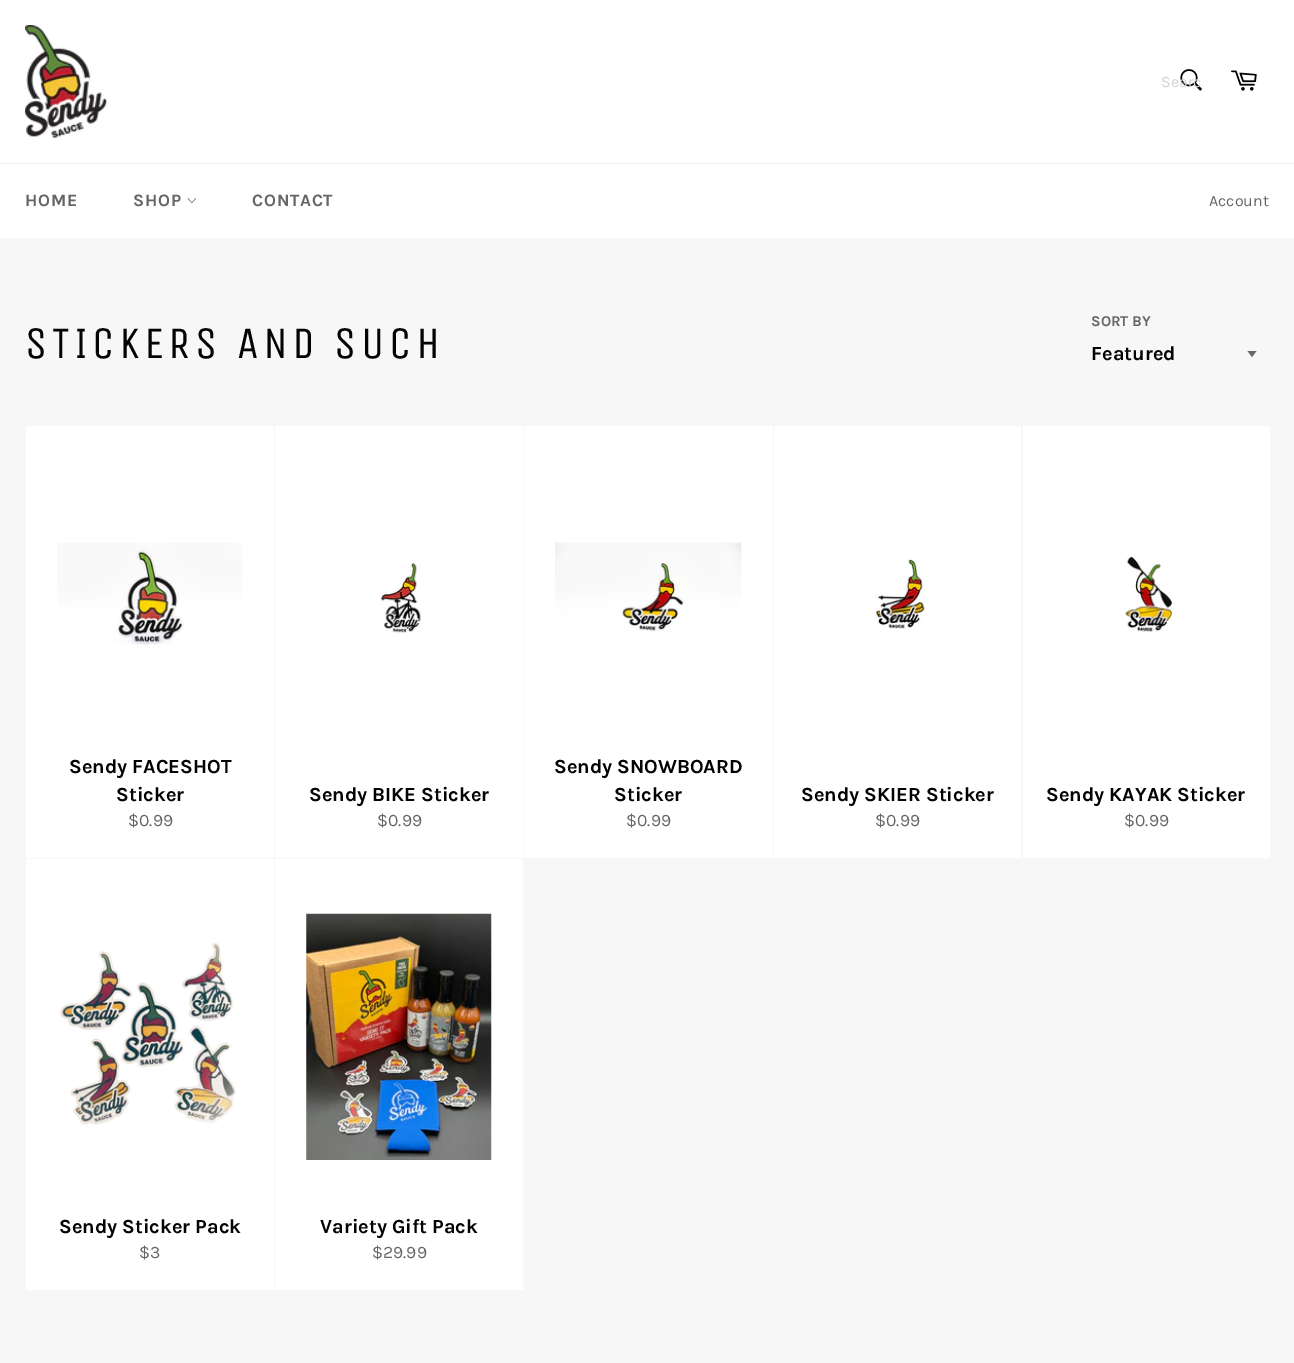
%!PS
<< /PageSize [1294 1363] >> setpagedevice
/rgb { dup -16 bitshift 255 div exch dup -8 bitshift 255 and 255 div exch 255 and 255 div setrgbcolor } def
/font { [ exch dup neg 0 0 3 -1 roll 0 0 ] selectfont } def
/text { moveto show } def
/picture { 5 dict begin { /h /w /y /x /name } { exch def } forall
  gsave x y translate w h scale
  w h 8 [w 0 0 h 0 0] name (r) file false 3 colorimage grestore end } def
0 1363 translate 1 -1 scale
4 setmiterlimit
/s1 { /Karla-Regular 16 font 16#D4D3D3 rgb } def
/s2 { /Karla-Regular 16 font 16#666666 rgb } def
/s3 { /Karla-Bold 15 font 16#666666 rgb } def
/s4 { /Karla-Bold 20 font 16#030303 rgb } def
/s5 { /Karla-Regular 17.5 font 16#666666 rgb } def
16#F7F7F7 rgb
0 0 1294 1363 rectfill
16#FFFFFF rgb
0 0 1294 163 rectfill
(pic1.raw) 25 25 82 113 picture
(pic2.raw) 1180 69 22 22 picture
gsave
1161 73 40 18 rectclip
s1
(Searc) 1161 87 text
grestore
(pic3.raw) 1231 70 26 21 picture
0 164 1294 74 rectfill
16#F2F2F2 rgb
0 163 1294 1 rectfill
/Karla-Bold 17.5 font
16#666666 rgb
25 206 moveto 0.75 0 (HOME) ashow
133 206 moveto 0.75 0 (SHOP) ashow
(pic4.raw) 187 198 10 6 picture
252 206 moveto 0.75 0 (CONTACT) ashow
s2
(Account) 1209 206 text
/UnicaOne-Regular 45 font
16#030303 rgb
25 358 moveto 4.5 0 (STICKERS AND SUCH) ashow
s3
(SORT BY) 1091 326 text
1247.5 351 moveto 1252 357 lineto 1256.5 351 lineto closepath fill
s4
(Featured) 1091 360 text
16#FFFFFF rgb
26 426 248 432 rectfill
(pic5.raw) 57 542 185 103 picture
s4
(Sendy FACESHOT) 69 773 text
(Sticker) 116 801 text
s5
($0.99) 128 826 text
16#FFFFFF rgb
275 426 248 432 rectfill
(pic6.raw) 380 563 41 70 picture
s4
(Sendy BIKE Sticker) 309 801 text
s5
($0.99) 377 826 text
16#FFFFFF rgb
524 426 249 432 rectfill
(pic7.raw) 555 542 187 90 picture
s4
(Sendy SNOWBOARD) 554 773 text
(Sticker) 614 801 text
s5
($0.99) 626 826 text
16#FFFFFF rgb
774 426 247 432 rectfill
(pic8.raw) 875 559 52 70 picture
s4
(Sendy SKIER Sticker) 801 801 text
s5
($0.99) 875 826 text
16#FFFFFF rgb
1023 426 247 432 rectfill
(pic9.raw) 1124 556 53 77 picture
s4
(Sendy KAYAK Sticker) 1046 801 text
s5
($0.99) 1124 826 text
16#FFFFFF rgb
26 859 248 431 rectfill
(pic10.raw) 59 942 178 183 picture
s4
(Sendy Sticker Pack) 59 1233 text
s5
($3) 139 1258 text
16#FFFFFF rgb
275 859 248 431 rectfill
(pic11.raw) 306 913 186 247 picture
s4
(Variety Gift Pack) 320 1233 text
s5
($29.99) 372 1258 text
showpage
